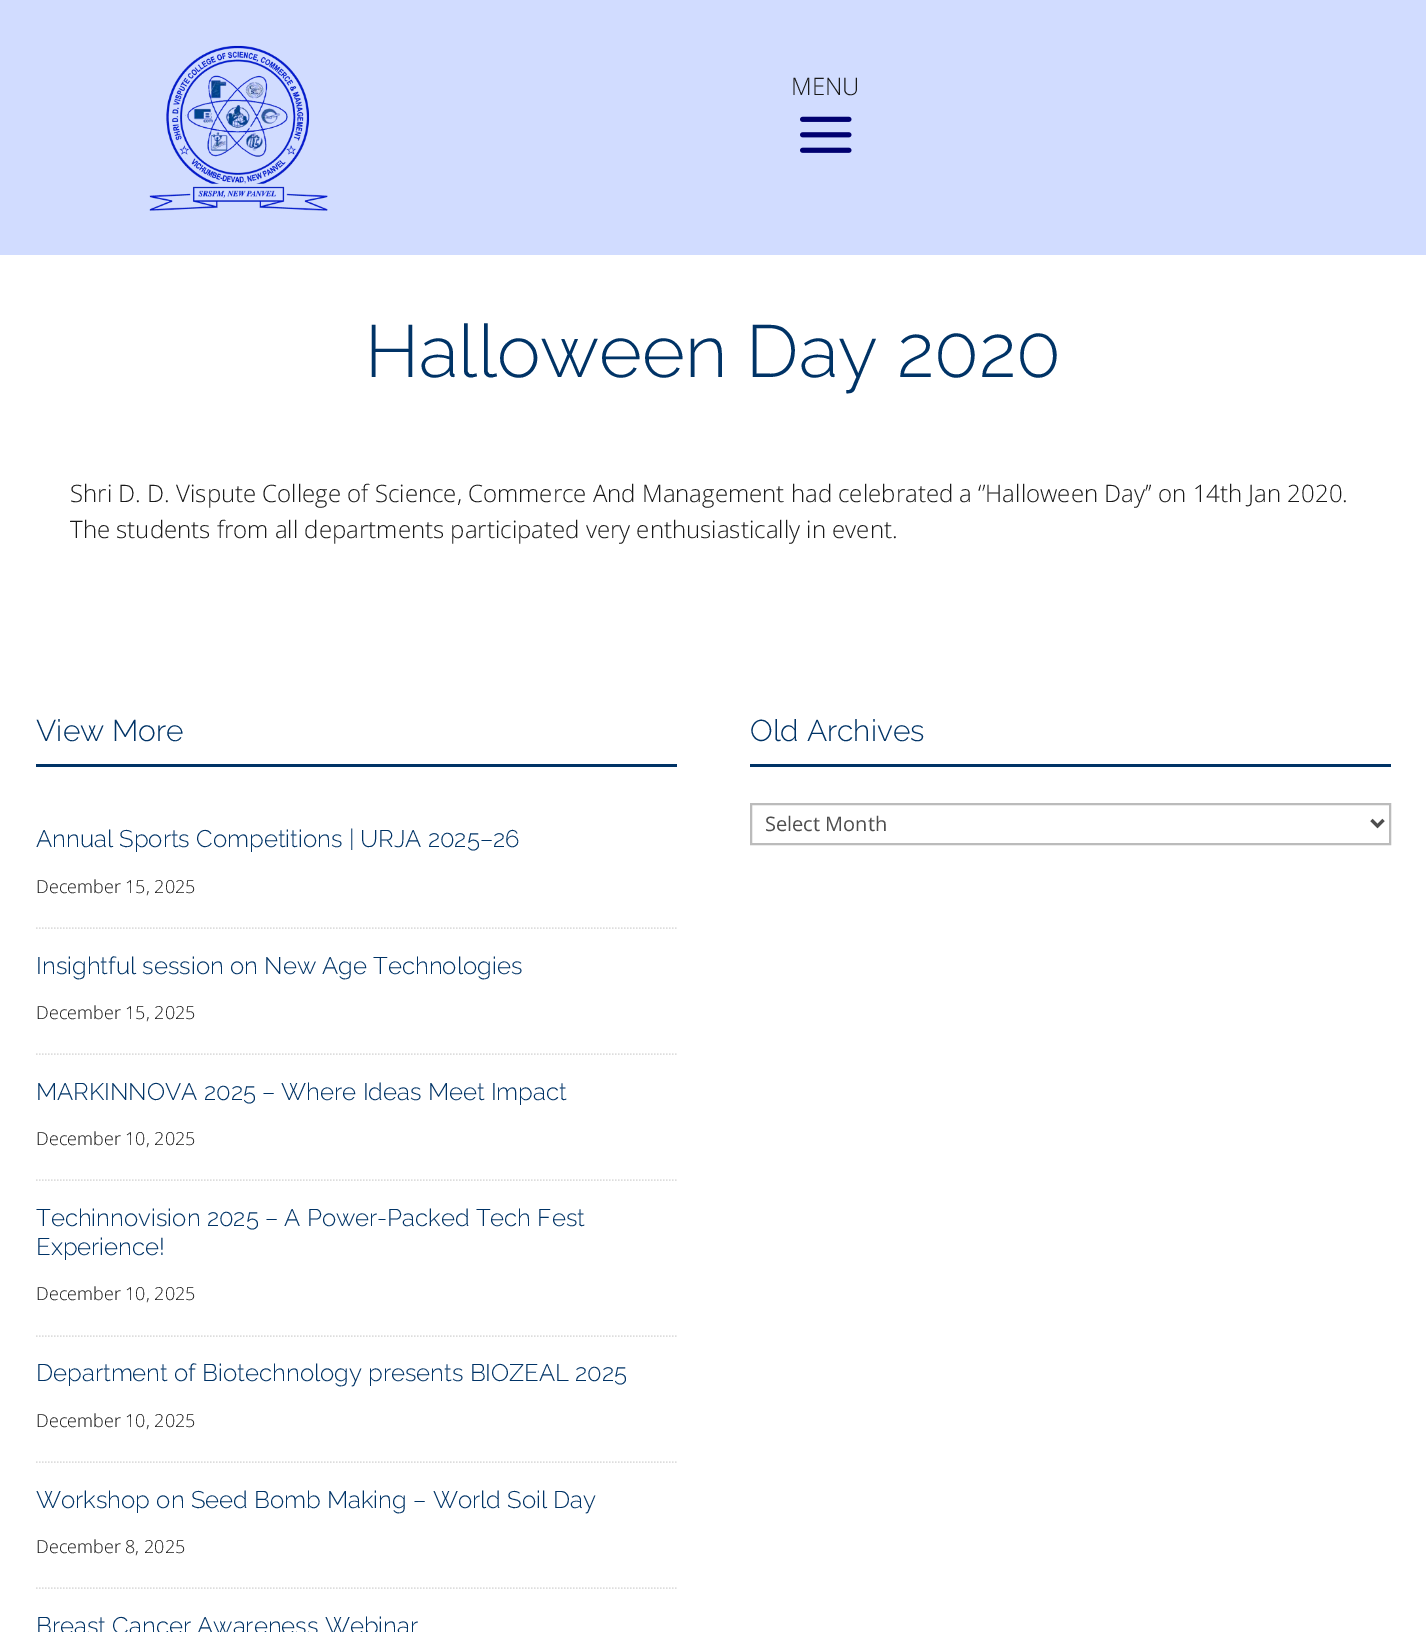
%!PS
<< /PageSize [1426 1632] >> setpagedevice
/rgb { dup -16 bitshift 255 div exch dup -8 bitshift 255 and 255 div exch 255 and 255 div setrgbcolor } def
/font { [ exch dup neg 0 0 3 -1 roll 0 0 ] selectfont } def
/text { moveto show } def
/picture { 5 dict begin { /h /w /y /x /name } { exch def } forall
  gsave x y translate w h scale
  w h 8 [w 0 0 h 0 0] name (r) file false 3 colorimage grestore end } def
0 1632 translate 1 -1 scale
4 setmiterlimit
/s1 { /OpenSans-Light 24 font 16#191919 rgb } def
/s2 { /Raleway-Thin 73.5 font 16#003366 rgb } def
/s3 { /Raleway-Thin 30 font 16#003366 rgb } def
/s4 { /Raleway-Thin 24 font 16#003366 rgb } def
/s5 { /OpenSans-Light 18 font 16#191919 rgb } def
/s6 { /OpenSans-Regular 20 font 16#4E4E4E rgb } def
16#FFFFFF rgb
0 0 1426 1632 rectfill
16#D1DCFF rgb
0 0 1426 255 rectfill
(pic1.raw) 149 45 179 166 picture
s1
(MENU) 791 95 text
(pic2.raw) 800 116 52 37 picture
s2
(Halloween Day 2020) 365 377 text
s1
(Shri D. D. Vispute College of Science, Commerce And Management had celebrated a ‘’Halloween Day’’ on 14th Jan 2020.) 70 502 text
(The students from all departments participated very enthusiastically in event.) 70 538 text
16#003366 rgb
36 764 641 3 rectfill
s3
(View More) 36 741 text
16#DDDDDD rgb
1.5 setlinewidth
[1.5 1.5] 0 setdash
36 928 moveto 676.5 928 lineto stroke
s4
(Annual Sports Competitions | URJA 2025–26) 36 847 text
s5
(December 15, 2025) 36 893 text
16#DDDDDD rgb
36 1054 moveto 676.5 1054 lineto stroke
s4
(Insightful session on New Age Technologies) 36 974 text
s5
(December 15, 2025) 36 1019 text
16#DDDDDD rgb
36 1180 moveto 676.5 1180 lineto stroke
s4
(MARKINNOVA 2025 – Where Ideas Meet Impact) 36 1100 text
s5
(December 10, 2025) 36 1145 text
16#DDDDDD rgb
36 1336 moveto 676.5 1336 lineto stroke
s4
(Techinnovision 2025 – A Power-Packed Tech Fest) 36 1226 text
(Experience!) 36 1255 text
s5
(December 10, 2025) 36 1300 text
16#DDDDDD rgb
36 1462 moveto 676.5 1462 lineto stroke
s4
(Department of Biotechnology presents BIOZEAL 2025) 36 1381 text
s5
(December 10, 2025) 36 1427 text
16#DDDDDD rgb
36 1588 moveto 676.5 1588 lineto stroke
s4
(Workshop on Seed Bomb Making – World Soil Day) 36 1508 text
s5
(December 8, 2025) 36 1553 text
s4
(Breast Cancer Awareness Webinar) 36 1634 text
750 764 641 3 rectfill
s3
(Old Archives) 750 741 text
16#BBBBBB rgb
2 setlinewidth
[] 0 setdash
751 804 639 40 rectstroke
16#4E4E4E rgb
3 setlinewidth
1371.5 820 moveto 1377.5 826 lineto 1383.5 820 lineto stroke
s6
(Select Month) 765 831 text
showpage
